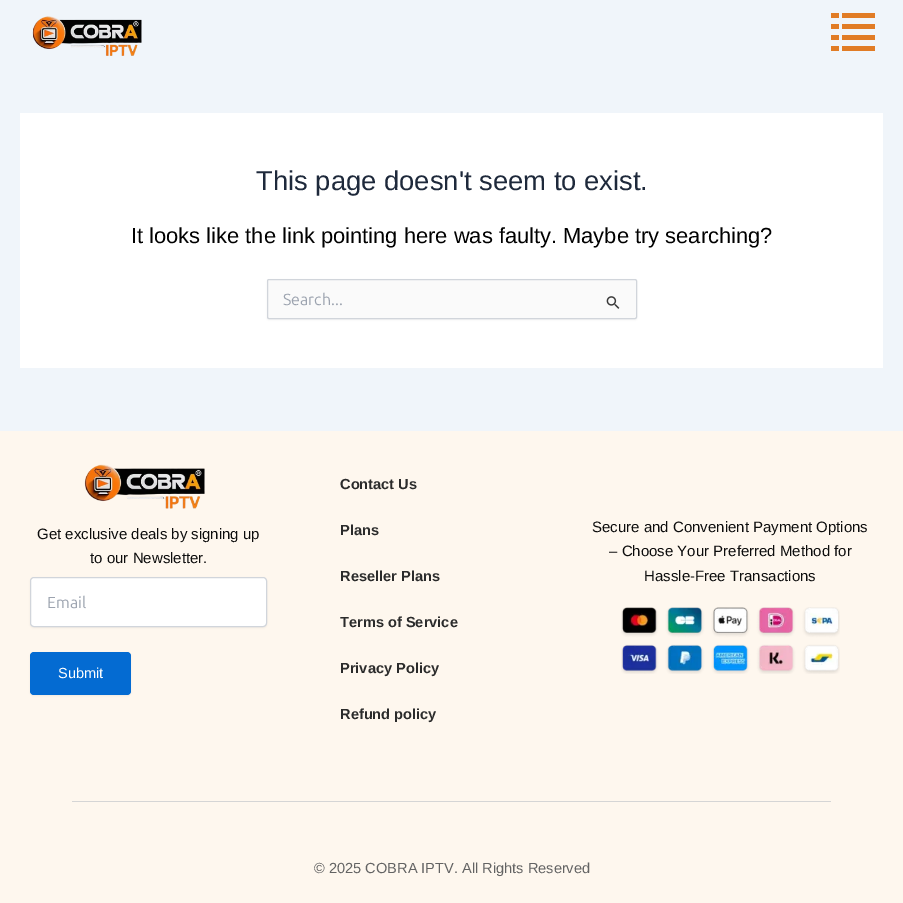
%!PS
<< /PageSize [903 903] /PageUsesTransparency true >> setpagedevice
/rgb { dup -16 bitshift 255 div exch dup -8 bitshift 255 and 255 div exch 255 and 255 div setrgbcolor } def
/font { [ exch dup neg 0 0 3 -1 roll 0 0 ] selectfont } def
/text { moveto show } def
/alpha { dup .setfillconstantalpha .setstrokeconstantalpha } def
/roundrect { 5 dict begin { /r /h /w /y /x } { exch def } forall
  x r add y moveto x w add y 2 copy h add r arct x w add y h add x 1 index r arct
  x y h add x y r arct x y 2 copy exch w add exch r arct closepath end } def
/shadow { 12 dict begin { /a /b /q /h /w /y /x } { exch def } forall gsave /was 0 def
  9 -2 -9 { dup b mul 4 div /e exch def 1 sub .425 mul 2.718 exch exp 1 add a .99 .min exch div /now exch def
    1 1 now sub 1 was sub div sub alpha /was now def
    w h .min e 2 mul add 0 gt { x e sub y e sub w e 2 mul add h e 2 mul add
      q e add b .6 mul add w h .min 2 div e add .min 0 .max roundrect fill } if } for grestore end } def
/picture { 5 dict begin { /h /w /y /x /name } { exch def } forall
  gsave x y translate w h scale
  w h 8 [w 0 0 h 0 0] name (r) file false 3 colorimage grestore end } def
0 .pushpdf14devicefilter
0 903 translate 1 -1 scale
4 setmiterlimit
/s1 { /LiberationSans-Regular 27.4 font 16#1E293B rgb } def
/s2 { /LiberationSans-Regular 21.9 font 16#000000 rgb } def
/s3 { /Ubuntu-Regular 16 font 16#9CA3AF rgb } def
/s4 { /LiberationSans-Regular 15 font 16#0D0D0D rgb } def
/s5 { /LiberationSans-Regular 14.6 font 16#FFFFFF rgb } def
/s6 { /LiberationSans-Bold 14.6 font 16#2B2B2B rgb } def
/s7 { /LiberationSans-Regular 14.6 font 16#636363 rgb } def
16#F0F5FA rgb
0 0 903 903 rectfill
(pic1.raw) 32 16 110 40 picture
16#E17C25 rgb
831 13 8 5 rectfill
831 24 8 5 rectfill
831 35 8 5 rectfill
831 46 8 5 rectfill
842 13 33 5 rectfill
842 24 33 5 rectfill
842 35 33 5 rectfill
842 46 33 5 rectfill
16#FFFFFF rgb
20 113 863 255 rectfill
s1
(This page doesn't seem to exist.) 256 190 text
s2
(It looks like the link pointing here was faulty. Maybe try searching?) 131 243 text
267 280 370 40 2 1 0.05 shadow
16#FAFAFA rgb
267.5 279.5 369 39 1.5 roundrect gsave fill grestore
16#D1D5DB rgb
stroke
s3
(Search...) 283 305 text
(pic2.raw) 606 296 14 13 picture
16#FEF7EE rgb
0 431 903 472 rectfill
(pic3.raw) 84 464 121 45 picture
s4
(Get exclusive deals by signing up) 37 539 text
(to our Newsletter.) 90 563 text
16#000000 rgb
30 578 237 50 4 1 0.05 shadow
16#FFFFFF rgb
30.5 577.5 236 49 3.5 roundrect gsave fill grestore
16#D1D5DB rgb
stroke
s3
(Email) 47 608 text
16#000000 rgb
30 653 101 43 4 1 0.05 shadow
16#046BD2 rgb
30 652 101 43 4 roundrect fill
s5
(Submit) 58 678 text
s6
(Contact Us) 340 489 text
(Plans) 340 535 text
(Reseller Plans) 340 581 text
(Terms of Service) 340 627 text
(Privacy Policy) 340 673 text
(Refund policy) 340 719 text
s4
(Secure and Convenient Payment Options) 592 532 text
(– Choose Your Preferred Method for) 609 556 text
(Hassle-Free Transactions) 644 581 text
(pic4.raw) 621 607 219 67 picture
16#D5D5D5 rgb
72 801 759 1 rectfill
s7
(© 2025 COBRA IPTV. All Rights Reserved) 314 873 text
.poppdf14devicefilter showpage
